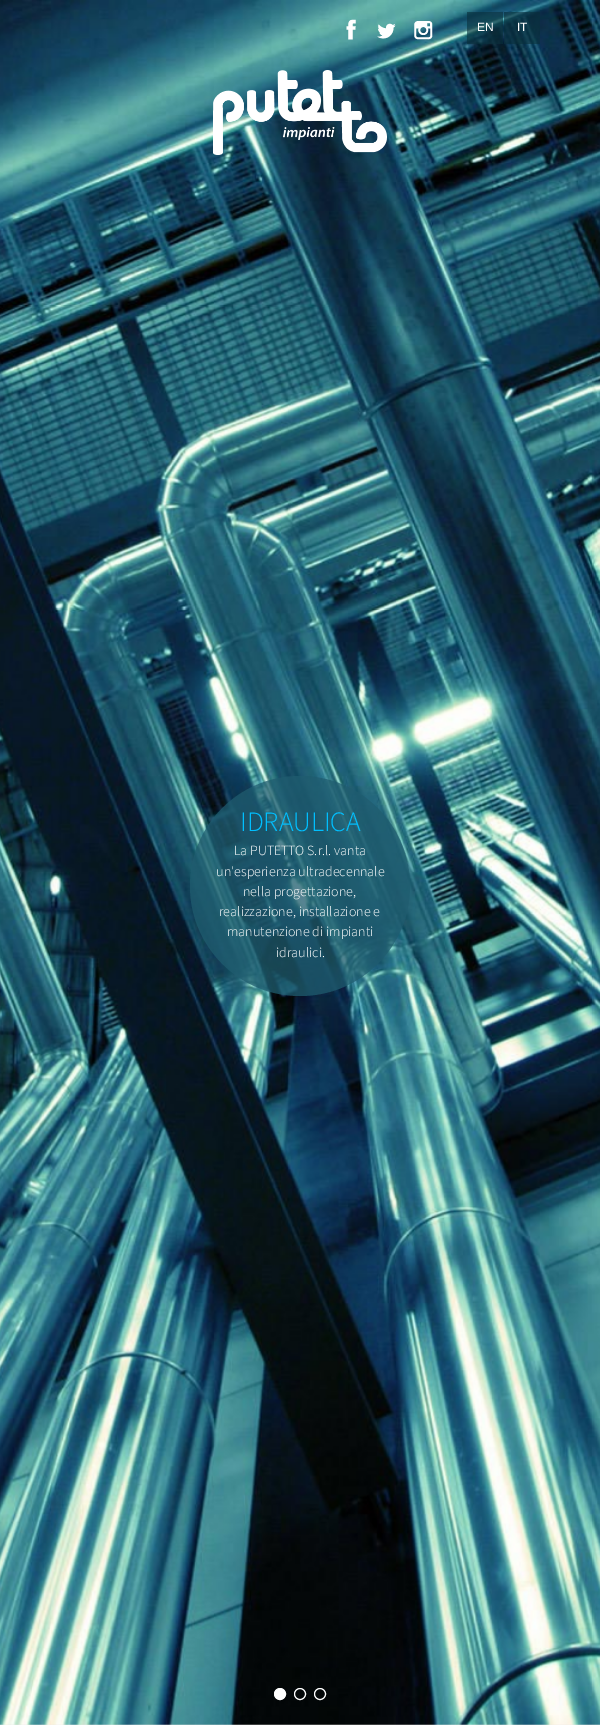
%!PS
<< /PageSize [600 1725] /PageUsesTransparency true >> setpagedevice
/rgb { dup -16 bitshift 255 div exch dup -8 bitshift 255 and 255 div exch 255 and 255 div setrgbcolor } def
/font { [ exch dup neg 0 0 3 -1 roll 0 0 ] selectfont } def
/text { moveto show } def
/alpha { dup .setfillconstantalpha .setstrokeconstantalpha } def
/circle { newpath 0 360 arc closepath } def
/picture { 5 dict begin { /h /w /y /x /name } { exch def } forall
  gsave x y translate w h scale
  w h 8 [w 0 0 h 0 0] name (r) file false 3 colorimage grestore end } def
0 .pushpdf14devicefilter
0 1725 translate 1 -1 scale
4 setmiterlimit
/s1 { /LiberationSans-Regular 12 font 16#FFFFFF rgb } def
/s2 { /SourceSansPro-Light 28 font 16#00BFFF rgb } def
/s3 { /SourceSansPro-Light 14 font 16#FFFFFF rgb } def
16#FFFFFF rgb
0 0 600 1725 rectfill
(pic5.raw) 0 0 600 1725 picture
(pic1.raw) 346 19 10 21 picture
(pic2.raw) 377 23 19 16 picture
(pic3.raw) 414 21 19 19 picture
0.61 alpha
16#09303C rgb
467 12 36 32 rectfill
1 alpha
s1
(EN) 477 31 text
0.61 alpha
16#09303C rgb
504 12 36 32 rectfill
1 alpha
s1
(IT) 517 31 text
(pic4.raw) 213 70 174 85 picture
0.75 alpha
16#1F5C6F rgb
300 886 110 circle fill
1 alpha
s2
(IDRAULICA) 240 831 text
s3
(La PUTETTO S.r.l. vanta) 234 855 text
(un'esperienza ultradecennale) 216 876 text
(nella progettazione,) 243 896 text
(realizzazione, installazione e) 219 916 text
(manutenzione di impianti) 227 936 text
(idraulici.) 276 957 text
280 1694 5.5 circle gsave fill grestore
stroke
300 1694 5.5 circle stroke
320 1694 5.5 circle stroke
.poppdf14devicefilter showpage
